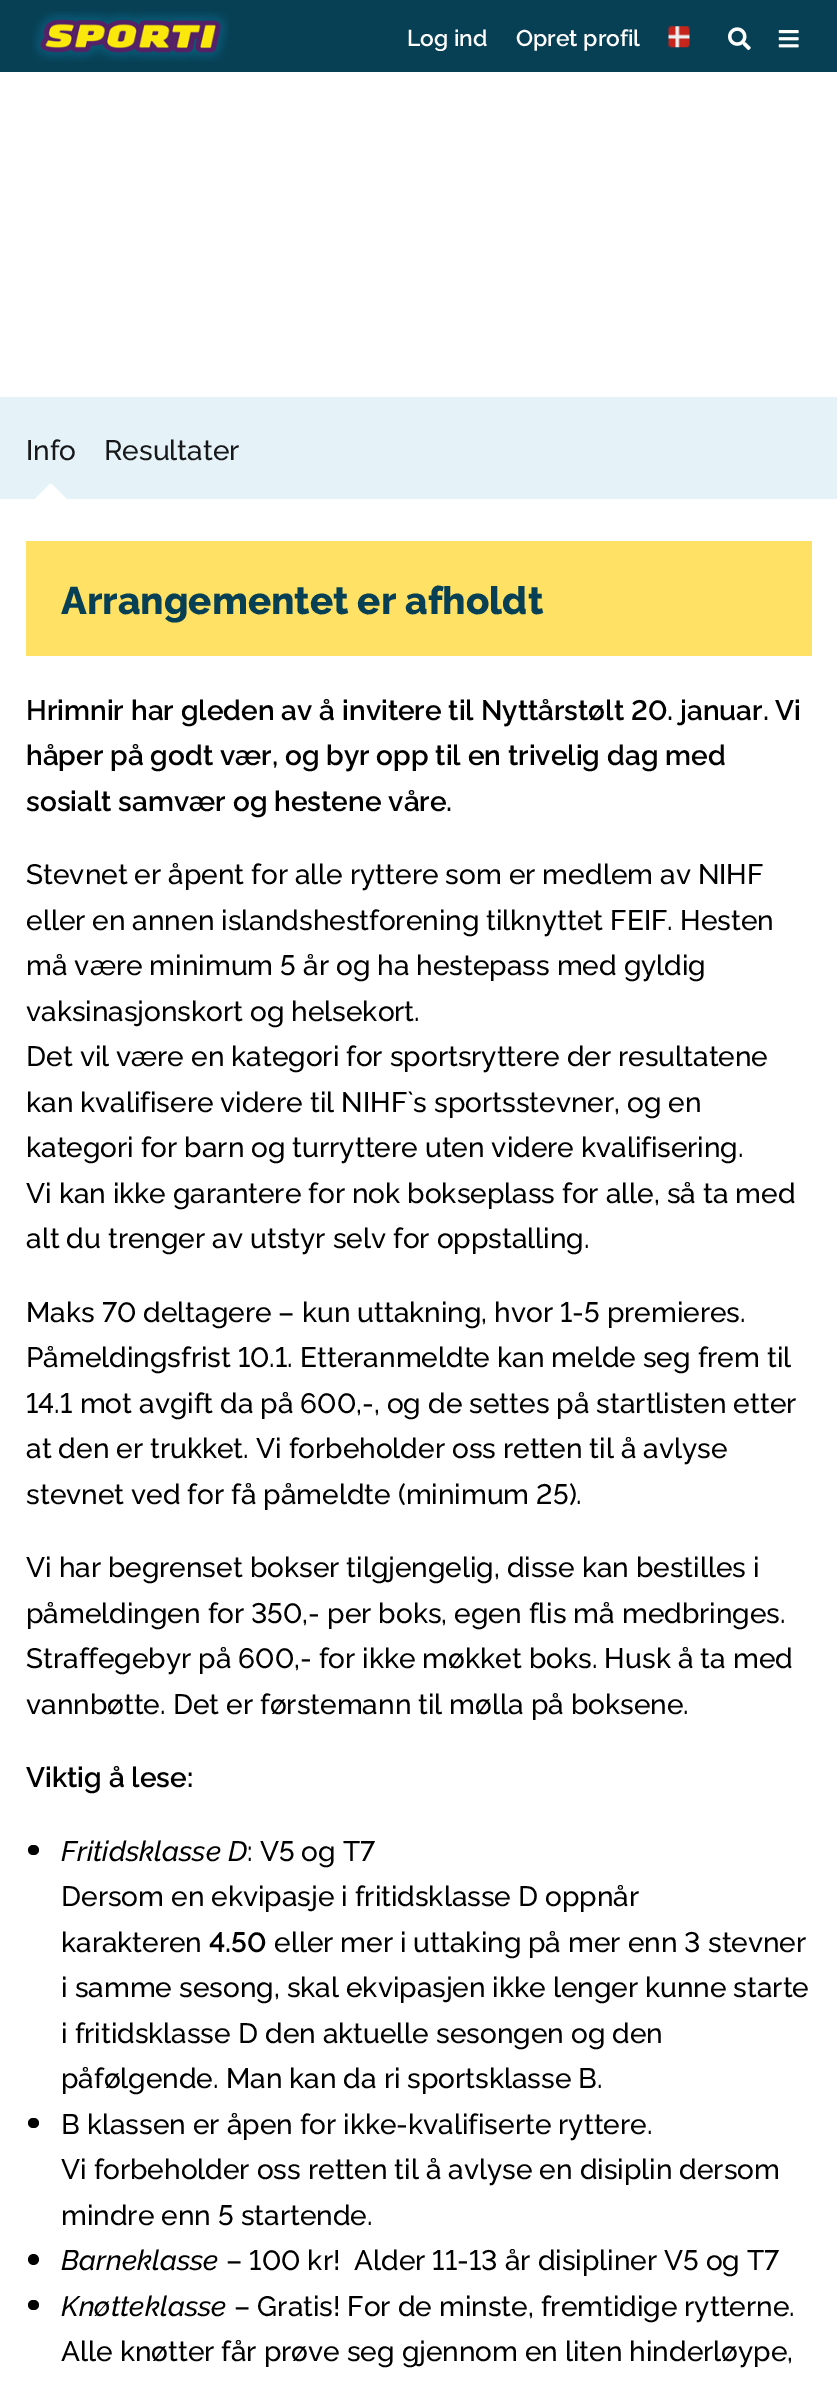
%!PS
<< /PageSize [837 2386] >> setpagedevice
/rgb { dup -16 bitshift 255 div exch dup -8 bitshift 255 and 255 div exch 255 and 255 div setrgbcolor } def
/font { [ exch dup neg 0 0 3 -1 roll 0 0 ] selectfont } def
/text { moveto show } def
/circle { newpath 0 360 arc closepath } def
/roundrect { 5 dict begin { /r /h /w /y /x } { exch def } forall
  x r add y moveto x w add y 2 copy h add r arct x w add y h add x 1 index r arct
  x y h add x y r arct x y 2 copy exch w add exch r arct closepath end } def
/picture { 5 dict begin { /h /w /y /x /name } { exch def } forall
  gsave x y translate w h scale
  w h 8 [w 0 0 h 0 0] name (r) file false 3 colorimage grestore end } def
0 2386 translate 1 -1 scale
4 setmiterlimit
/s1 { /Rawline-SemiBold 22.75 font 16#FFFFFF rgb } def
/s2 { /Rawline-Medium 28 font 16#171819 rgb } def
/s3 { /Rawline-ExtraBold 38.5 font 16#074055 rgb } def
/s4 { /Rawline-SemiBold 28 font 16#000000 rgb } def
/s5 { /Rawline-Medium 28 font 16#000000 rgb } def
/s6 { /Rawline-MediumItalic 28 font 16#000000 rgb } def
16#FFFFFF rgb
0 0 837 2386 rectfill
16#074055 rgb
0 0 837 72 rectfill
(pic1.raw) 32 11 197 51 picture
s1
(Log ind) 407 46 text
(Opret profil) 516 46 text
(pic2.raw) 668 26 22 22 picture
(pic3.raw) 728 27 23 24 picture
(pic4.raw) 778 30 21 18 picture
16#E5F3F8 rgb
0 397 837 102 rectfill
s2
(Info) 26 460 text
(pic5.raw) 35 483 32 16 picture
(Resultater) 104 460 text
16#FFE265 rgb
26 541 786 115 rectfill
s3
(Arrangementet er afholdt) 61 614 text
s4
(Hrimnir har gleden av å invitere til Nyttårstølt 20. januar. Vi) 26 720 text
(håper på godt vær, og byr opp til en trivelig dag med) 26 765 text
(sosialt samvær og hestene våre.) 26 811 text
s5
(Stevnet er åpent for alle ryttere som er medlem av NIHF) 26 884 text
(eller en annen islandshestforening tilknyttet FEIF. Hesten) 26 930 text
(må være minimum 5 år og ha hestepass med gyldig) 26 975 text
(vaksinasjonskort og helsekort.) 26 1021 text
(Det vil være en kategori for sportsryttere der resultatene) 26 1066 text
(kan kvalifisere videre til NIHF`s sportsstevner, og en) 26 1112 text
(kategori for barn og turryttere uten videre kvalifisering.) 26 1157 text
(Vi kan ikke garantere for nok bokseplass for alle, så ta med) 26 1203 text
(alt du trenger av utstyr selv for oppstalling.) 26 1248 text
(Maks 70 deltagere – kun uttakning, hvor 1-5 premieres.) 26 1322 text
(Påmeldingsfrist 10.1. Etteranmeldte kan melde seg frem til) 26 1367 text
(14.1 mot avgift da på 600,-, og de settes på startlisten etter) 26 1413 text
(at den er trukket. Vi forbeholder oss retten til å avlyse) 26 1458 text
(stevnet ved for få påmeldte \(minimum 25\).) 26 1504 text
(Vi har begrenset bokser tilgjengelig, disse kan bestilles i) 26 1577 text
(påmeldingen for 350,- per boks, egen flis må medbringes.) 26 1623 text
(Straffegebyr på 600,- for ikke møkket boks. Husk å ta med) 26 1668 text
(vannbøtte. Det er førstemann til mølla på boksene.) 26 1714 text
s4
(Viktig å lese:) 26 1787 text
28 1845 11 10 5 roundrect fill
s6
(Fritidsklasse D) 61 1861 text
s5
(: V5 og T7) 247 1861 text
(Dersom en ekvipasje i fritidsklasse D oppnår) 61 1906 text
(karakteren) 61 1952 text
s4
(4.50) 209 1952 text
s5
(eller mer i uttaking på mer enn 3 stevner) 274 1952 text
(i samme sesong, skal ekvipasjen ikke lenger kunne starte) 61 1997 text
(i fritidsklasse D den aktuelle sesongen og den) 61 2043 text
(påfølgende. Man kan da ri sportsklasse B.) 61 2088 text
28 2118 11 10 5 roundrect fill
(B klassen er åpen for ikke-kvalifiserte ryttere.) 61 2134 text
(Vi forbeholder oss retten til å avlyse en disiplin dersom) 61 2179 text
(mindre enn 5 startende.) 61 2225 text
33.5 2259.5 5.5 circle fill
s6
(Barneklasse) 61 2270 text
s5
(– 100 kr!  Alder 11-13 år disipliner V5 og T7) 226 2270 text
28 2300 11 10 5 roundrect fill
s6
(Knøtteklasse) 61 2316 text
s5
(– Gratis! For de minste, fremtidige rytterne.) 234 2316 text
(Alle knøtter får prøve seg gjennom en liten hinderløype,) 61 2361 text
showpage
